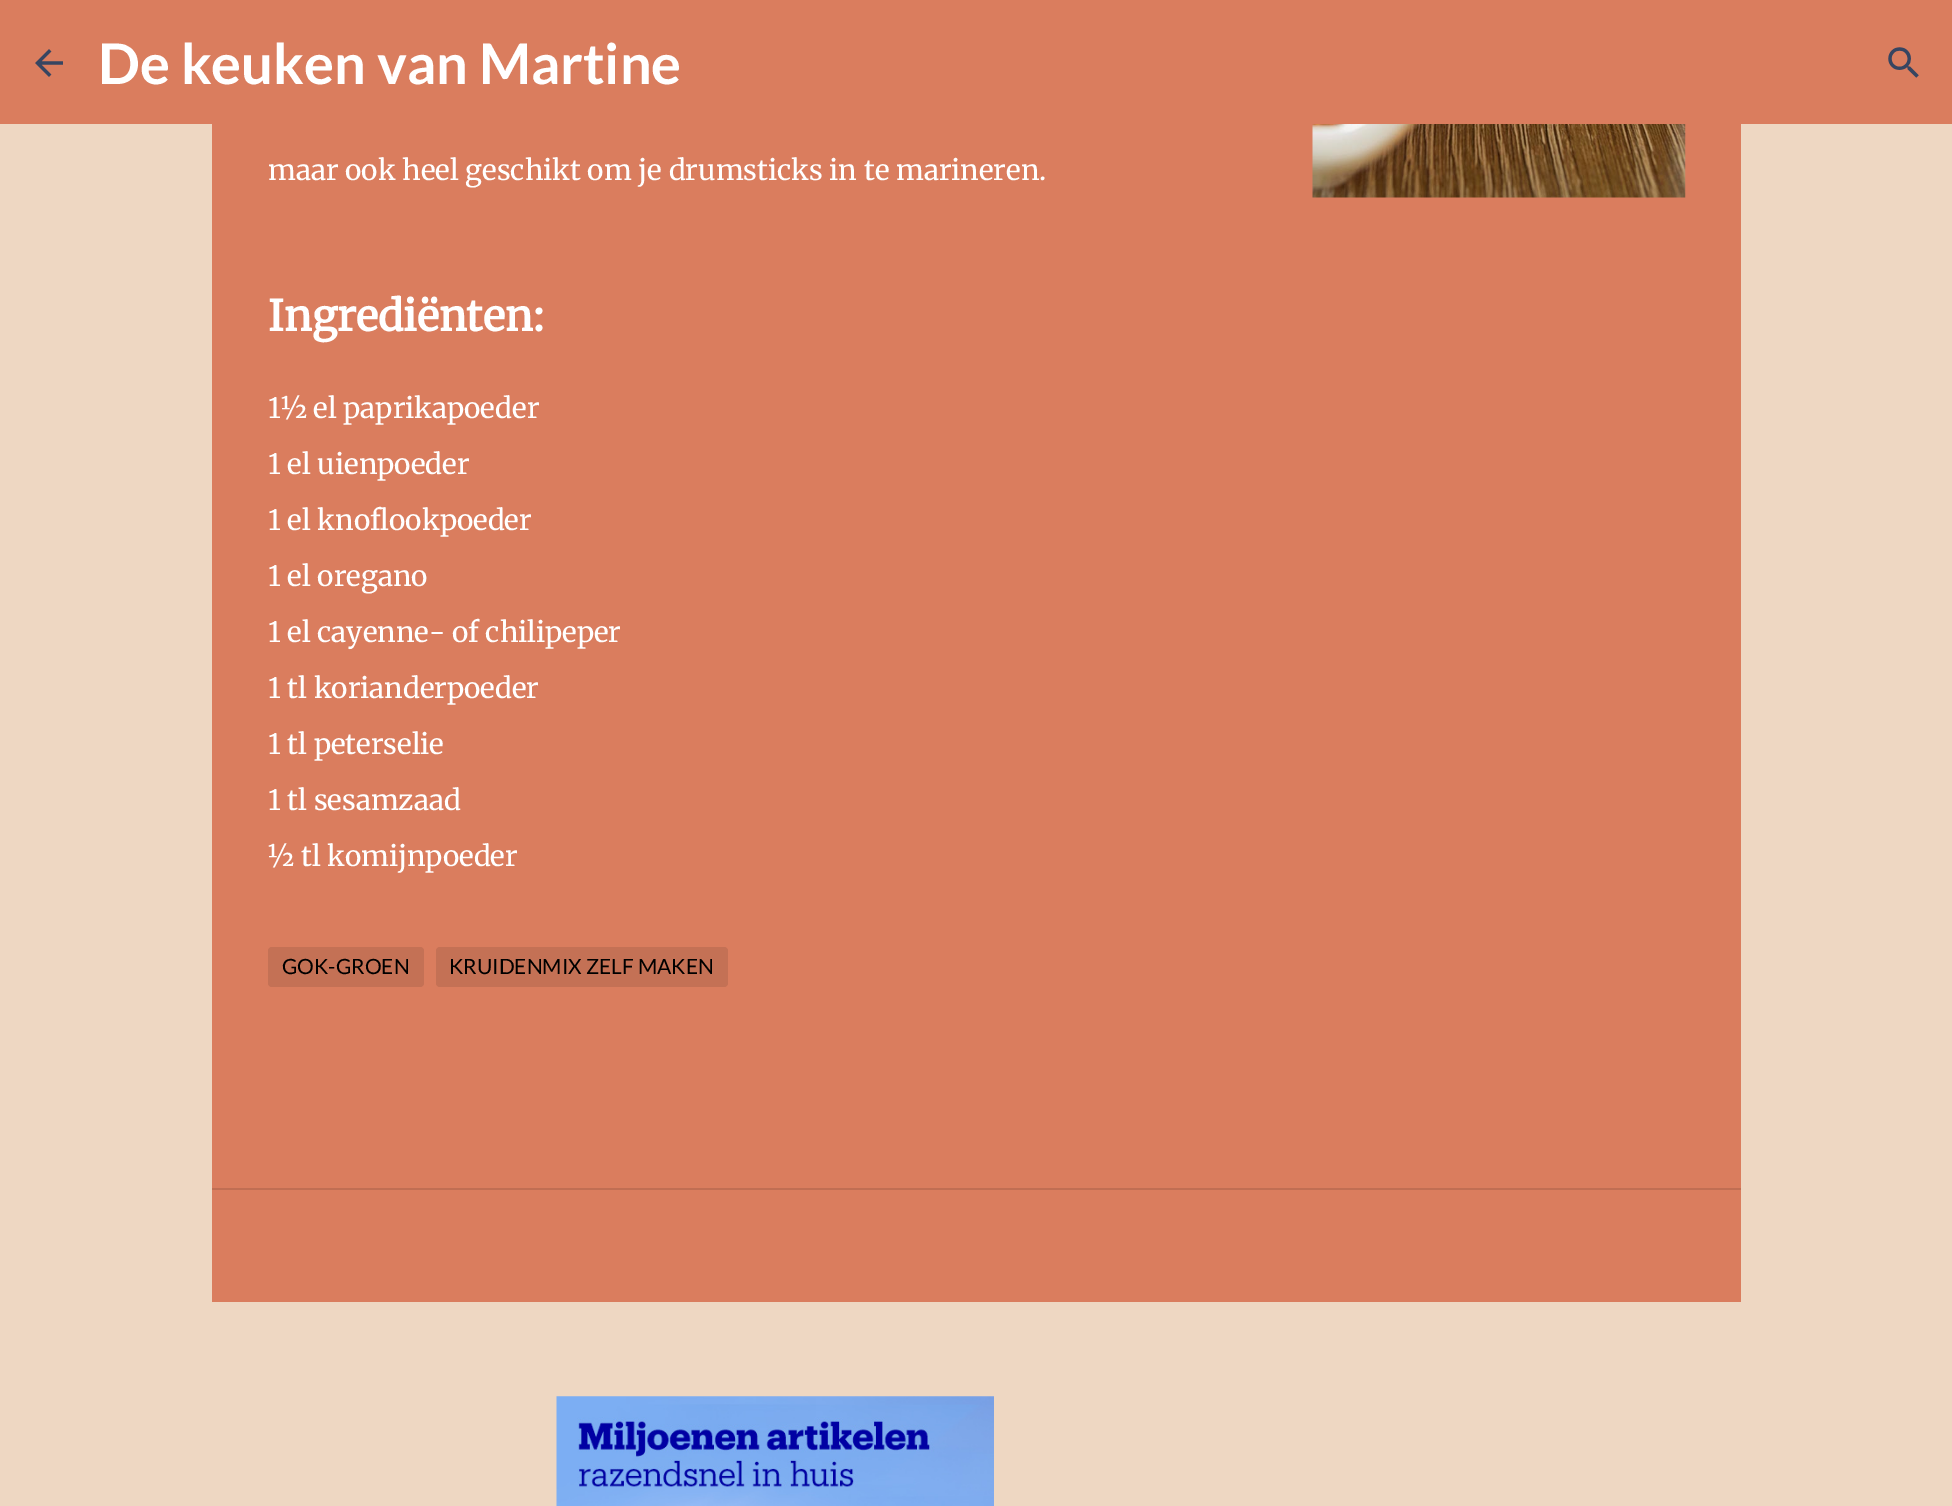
%!PS
<< /PageSize [1952 1506] >> setpagedevice
/rgb { dup -16 bitshift 255 div exch dup -8 bitshift 255 and 255 div exch 255 and 255 div setrgbcolor } def
/font { [ exch dup neg 0 0 3 -1 roll 0 0 ] selectfont } def
/text { moveto show } def
/roundrect { 5 dict begin { /r /h /w /y /x } { exch def } forall
  x r add y moveto x w add y 2 copy h add r arct x w add y h add x 1 index r arct
  x y h add x y r arct x y 2 copy exch w add exch r arct closepath end } def
/picture { 5 dict begin { /h /w /y /x /name } { exch def } forall
  gsave x y translate w h scale
  w h 8 [w 0 0 h 0 0] name (r) file false 3 colorimage grestore end } def
0 1506 translate 1 -1 scale
4 setmiterlimit
/s1 { /Lato-Bold 56 font 16#FFFFFF rgb } def
/s2 { /Merriweather-Light 28 font 16#FFFFFF rgb } def
/s3 { /Merriweather-Bold 42 font 16#FFFFFF rgb } def
/s4 { /Lato-Regular 21 font 16#000000 rgb } def
16#EED7C2 rgb
0 0 1952 1506 rectfill
16#DA7D5E rgb
0 0 1952 124 rectfill
(pic1.raw) 35 49 28 28 picture
s1
(De keuken van Martine) 98 84 text
(pic2.raw) 1888 47 31 31 picture
16#DA7D5E rgb
212 124 1529 1064 rectfill
s2
(maar ook heel geschikt om je drumsticks in te marineren.) 268 180 text
(pic3.raw) 1312 124 374 74 picture
s3
(Ingrediënten:) 268 331 text
s2
(1½ el paprikapoeder) 268 418 text
(1 el uienpoeder) 268 474 text
(1 el knoflookpoeder) 268 530 text
(1 el oregano) 268 586 text
(1 el cayenne- of chilipeper) 268 642 text
(1 tl korianderpoeder) 268 698 text
(1 tl peterselie) 268 754 text
(1 tl sesamzaad) 268 810 text
(½ tl komijnpoeder) 268 866 text
16#C47155 rgb
268 947 156 40 4 roundrect fill
s4
(GOK-GROEN) 282 974 text
16#C47155 rgb
436 947 292 40 4 roundrect fill
s4
(KRUIDENMIX ZELF MAKEN) 449 974 text
16#DA7D5E rgb
212 1190 1529 112 rectfill
16#C06E53 rgb
212 1188 1529 2 rectfill
(pic4.raw) 556 1396 438 110 picture
showpage
